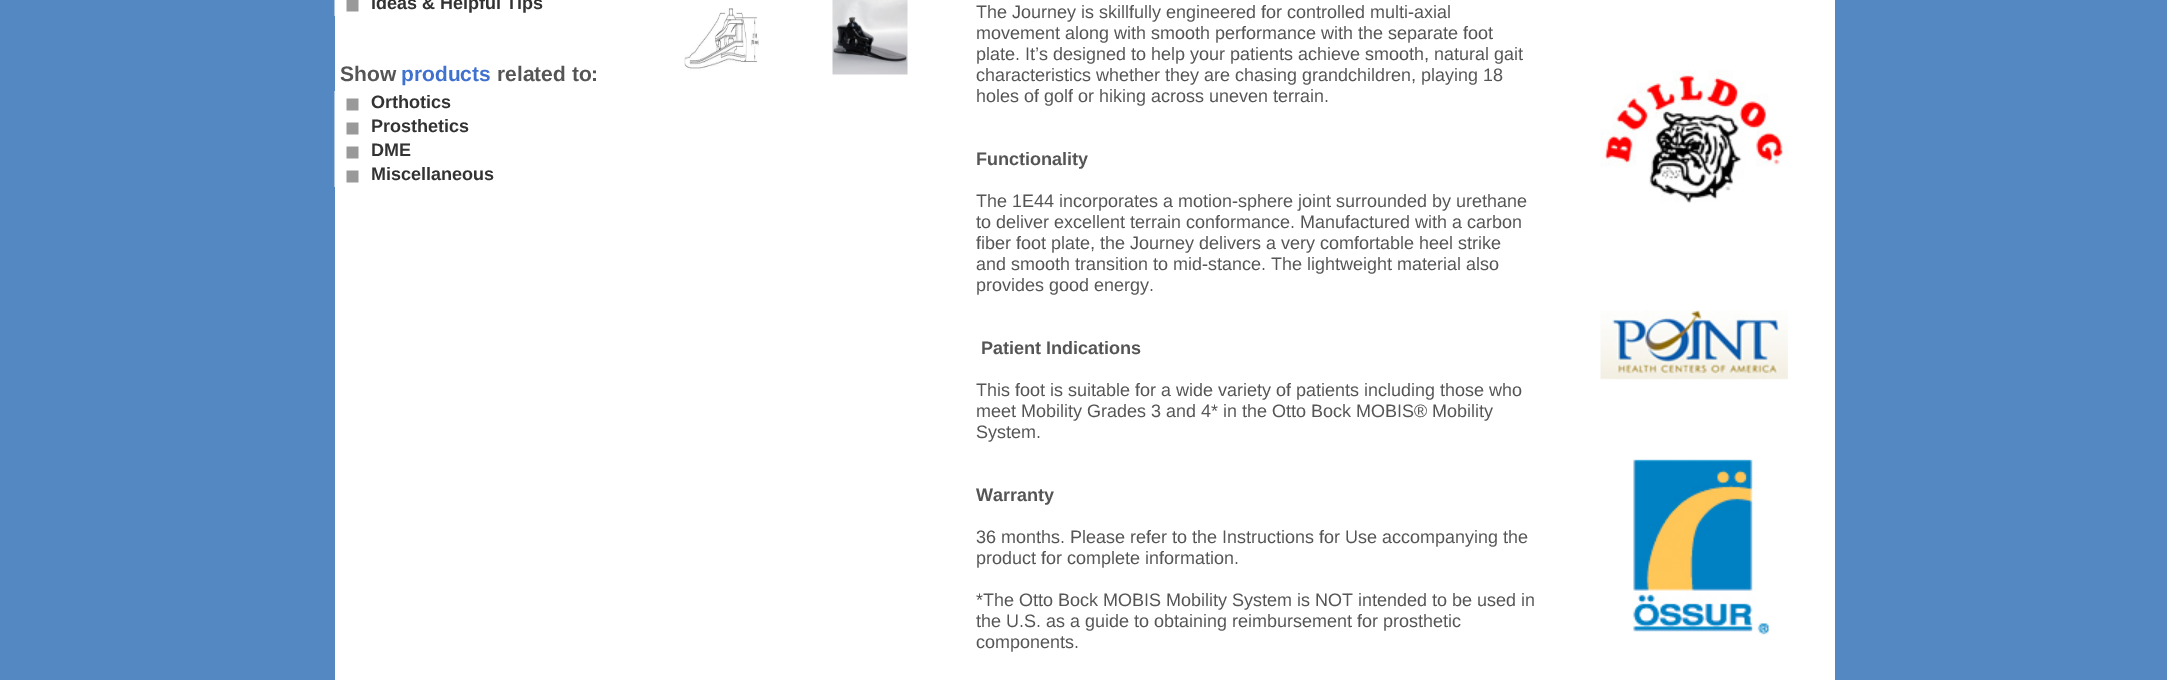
%!PS
<< /PageSize [2167 680] >> setpagedevice
/rgb { dup -16 bitshift 255 div exch dup -8 bitshift 255 and 255 div exch 255 and 255 div setrgbcolor } def
/font { [ exch dup neg 0 0 3 -1 roll 0 0 ] selectfont } def
/text { moveto show } def
/picture { 5 dict begin { /h /w /y /x /name } { exch def } forall
  gsave x y translate w h scale
  w h 8 [w 0 0 h 0 0] name (r) file false 3 colorimage grestore end } def
0 680 translate 1 -1 scale
4 setmiterlimit
/s1 { /LiberationSans-Bold 18 font 16#333333 rgb } def
/s2 { /LiberationSans-Bold 21 font 16#555555 rgb } def
/s3 { /LiberationSans-Bold 21 font 16#4071CF rgb } def
/s4 { /LiberationSans-Regular 18 font 16#555555 rgb } def
/s5 { /LiberationSans-Bold 18 font 16#555555 rgb } def
16#5488C2 rgb
0 0 2167 680 rectfill
16#FFFFFF rgb
335 0 1500 680 rectfill
(pic1.raw) 334 0 25 16 picture
s1
(Ideas & Helpful Tips) 371 9 text
s2
(Show) 340 81 text
s3
(products) 401 81 text
s2
(related to:) 497 81 text
(pic2.raw) 334 91 25 24 picture
s1
(Orthotics) 371 108 text
(pic2.raw) 334 115 25 24 picture
(Prosthetics) 371 132 text
(pic2.raw) 334 139 25 24 picture
(DME) 371 156 text
(pic2.raw) 334 163 25 24 picture
(Miscellaneous) 371 180 text
(pic3.raw) 684 8 75 63 picture
(pic4.raw) 832 0 76 75 picture
s4
(The Journey is skillfully engineered for controlled multi-axial) 976 18 text
(movement along with smooth performance with the separate foot) 976 39 text
(plate. It’s designed to help your patients achieve smooth, natural gait) 976 60 text
(characteristics whether they are chasing grandchildren, playing 18) 976 81 text
(holes of golf or hiking across uneven terrain.) 976 102 text
s5
(Functionality) 976 165 text
s4
(The 1E44 incorporates a motion-sphere joint surrounded by urethane) 976 207 text
(to deliver excellent terrain conformance. Manufactured with a carbon) 976 228 text
(fiber foot plate, the Journey delivers a very comfortable heel strike) 976 249 text
(and smooth transition to mid-stance. The lightweight material also) 976 270 text
(provides good energy.) 976 291 text
s5
(Patient Indications) 981 354 text
s4
(This foot is suitable for a wide variety of patients including those who) 976 396 text
(meet Mobility Grades 3 and 4* in the Otto Bock MOBIS® Mobility) 976 417 text
(System.) 976 438 text
s5
(Warranty) 976 501 text
s4
(36 months. Please refer to the Instructions for Use accompanying the) 976 543 text
(product for complete information.) 976 564 text
(*The Otto Bock MOBIS Mobility System is NOT intended to be used in) 976 606 text
(the U.S. as a guide to obtaining reimbursement for prosthetic) 976 627 text
(components.) 976 648 text
(pic5.raw) 1600 70 188 134 picture
(pic6.raw) 1600 310 188 70 picture
(pic7.raw) 1632 459 137 176 picture
showpage
